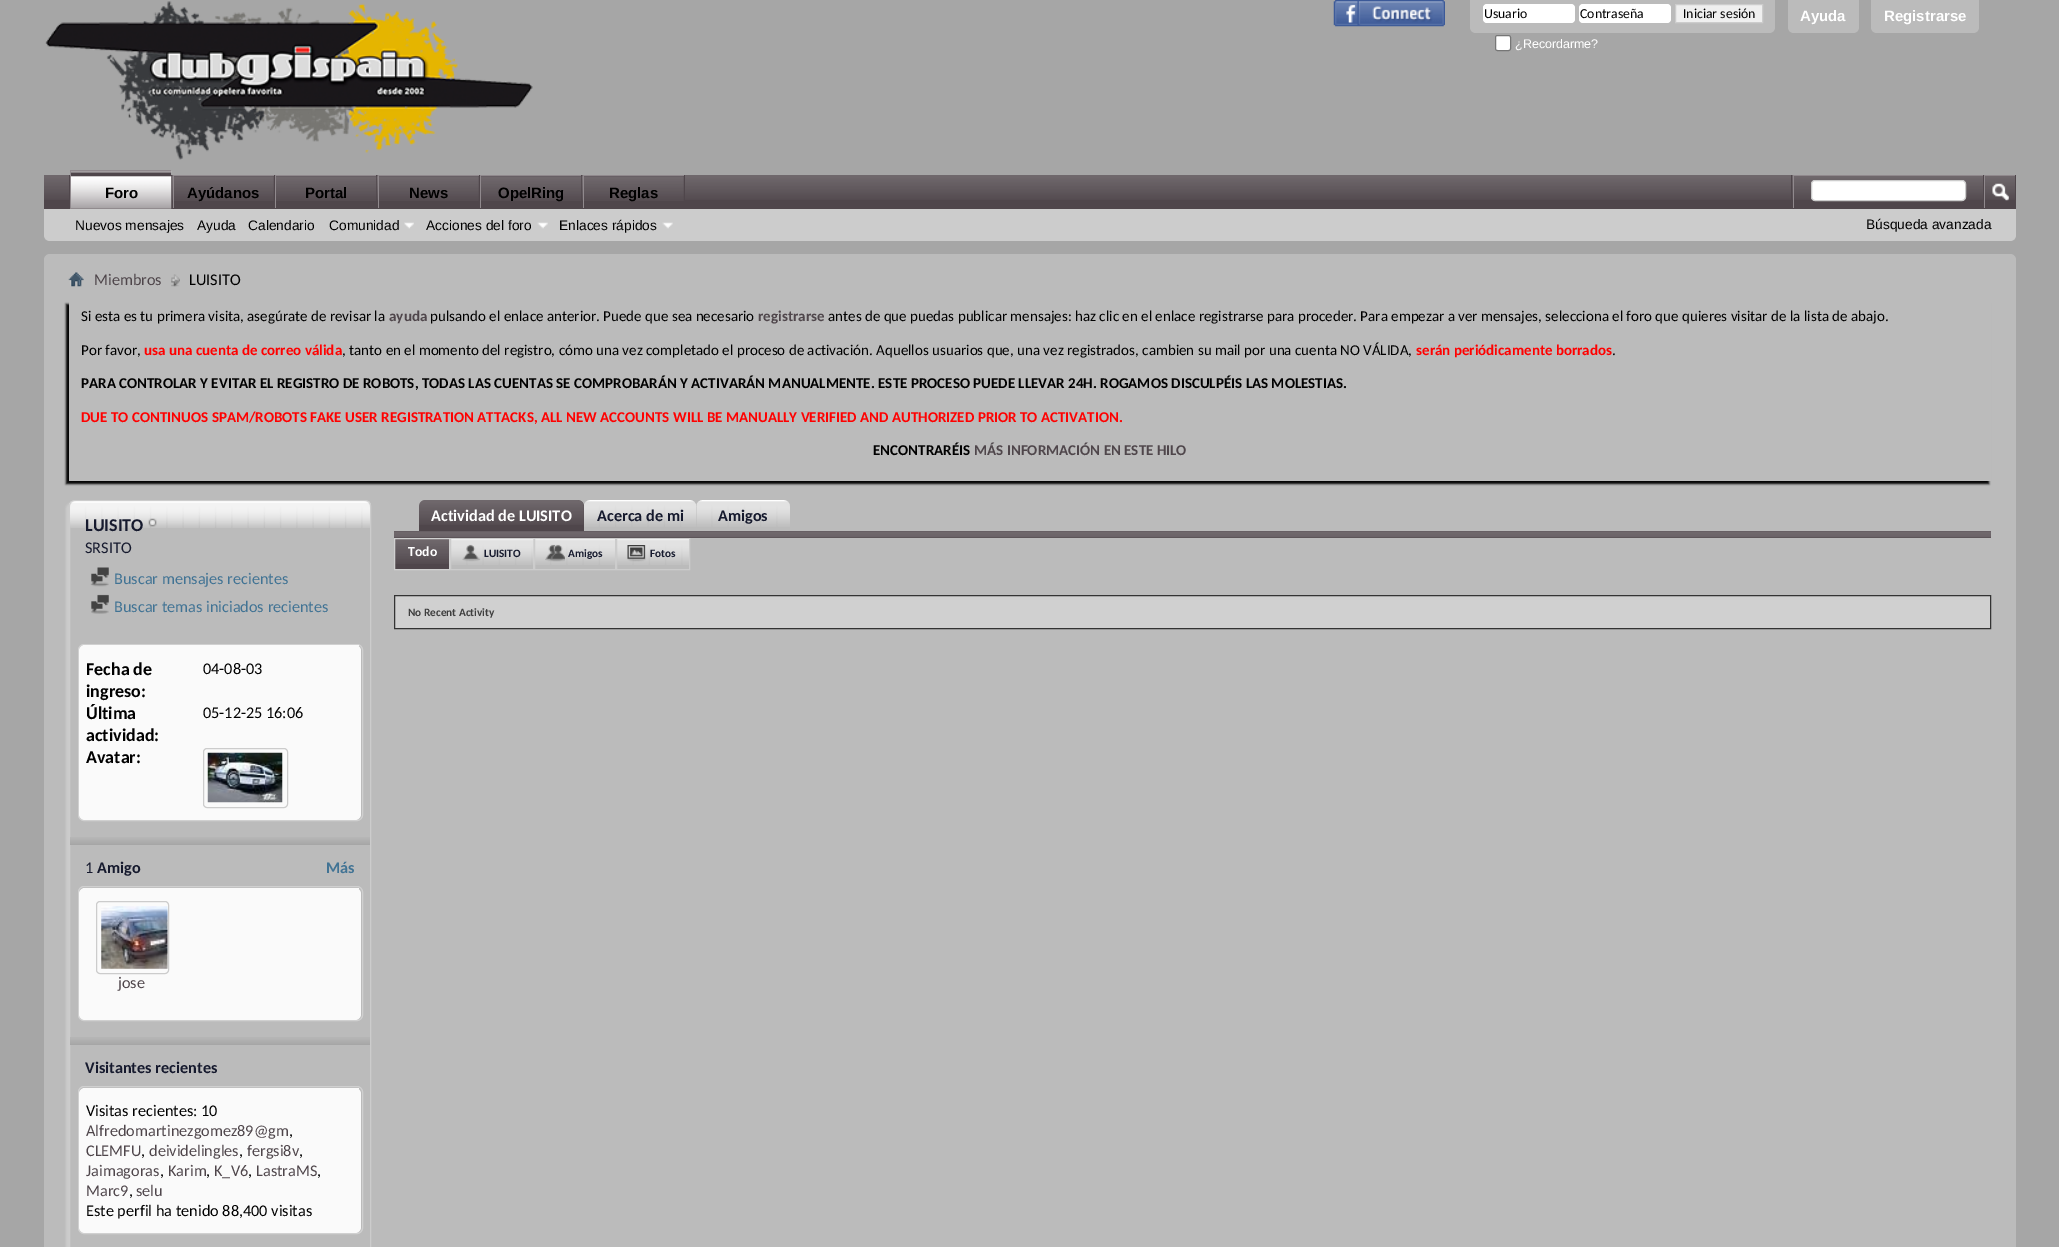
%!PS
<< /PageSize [2059 1247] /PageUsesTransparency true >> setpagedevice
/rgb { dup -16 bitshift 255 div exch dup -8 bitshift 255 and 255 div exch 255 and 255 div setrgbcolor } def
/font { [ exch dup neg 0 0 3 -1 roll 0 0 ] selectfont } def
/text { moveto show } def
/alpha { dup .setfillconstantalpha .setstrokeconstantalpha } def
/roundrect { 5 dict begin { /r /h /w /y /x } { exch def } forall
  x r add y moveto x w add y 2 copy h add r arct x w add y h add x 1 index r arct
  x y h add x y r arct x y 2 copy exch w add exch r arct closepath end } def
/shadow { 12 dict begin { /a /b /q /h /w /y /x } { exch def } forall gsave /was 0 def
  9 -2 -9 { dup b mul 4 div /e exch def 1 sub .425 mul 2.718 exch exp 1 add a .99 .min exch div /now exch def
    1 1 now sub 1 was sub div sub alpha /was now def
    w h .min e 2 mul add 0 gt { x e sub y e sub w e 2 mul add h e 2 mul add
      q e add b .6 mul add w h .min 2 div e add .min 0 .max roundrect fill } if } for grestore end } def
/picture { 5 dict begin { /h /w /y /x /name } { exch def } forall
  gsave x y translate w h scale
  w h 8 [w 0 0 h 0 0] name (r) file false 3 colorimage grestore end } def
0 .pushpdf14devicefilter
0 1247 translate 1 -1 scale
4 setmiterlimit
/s1 { /Carlito-Regular 13.75 font 16#000000 rgb } def
/s2 { /LiberationSans-Regular 12.5 font 16#FFFFFF rgb } def
/s3 { /LiberationSans-Bold 15 font 16#FFFFFF rgb } def
/s4 { /LiberationSans-Bold 15 font 16#000000 rgb } def
/s5 { /LiberationSans-Regular 13.75 font 16#000000 rgb } def
/s6 { /Carlito-Regular 16.25 font 16#4F464B rgb } def
/s7 { /Carlito-Regular 16.25 font 16#000000 rgb } def
/s8 { /Carlito-Regular 15 font 16#000000 rgb } def
/s9 { /Carlito-Bold 15 font 16#4F464B rgb } def
/s10 { /Carlito-Bold 15 font 16#FF0000 rgb } def
/s11 { /Carlito-Bold 15 font 16#000000 rgb } def
/s12 { /Carlito-Bold 18 font 16#161A2E rgb } def
/s13 { /Carlito-Regular 16.25 font 16#161A2E rgb } def
/s14 { /Carlito-Regular 16.25 font 16#417394 rgb } def
/s15 { /Carlito-Bold 18 font 16#000000 rgb } def
/s16 { /Carlito-Bold 16.25 font 16#161A2E rgb } def
/s17 { /Carlito-Bold 16.25 font 16#417394 rgb } def
/s18 { /Carlito-Bold 16.25 font 16#FFFFFF rgb } def
/s19 { /Carlito-Bold 13.75 font 16#FFFFFF rgb } def
/s20 { /Carlito-Bold 11.25 font 16#161A2E rgb } def
/s21 { /Carlito-Bold 11.25 font 16#3E3E3E rgb } def
16#A6A6A6 rgb
0 0 2059 1247 rectfill
(pic1.raw) 45 1 488 159 picture
(pic2.raw) 1333 0 112 27 picture
16#BBBBBB rgb
1470 0 moveto 1775 0 lineto 1775 27 lineto 1775 30.5 1772.5 33 1769 33 curveto 1476 33 lineto 1472.5 33 1470 30.5 1470 27 curveto closepath fill
16#FFFFFF rgb
1483 4 92 19 4 roundrect fill
s1
(Usuario) 1484 18 text
16#FFFFFF rgb
1579 4 92 19 4 roundrect fill
s1
(Contraseña) 1580 18 text
16#EFEFEF rgb
1675.5 4.5 moveto 1762.5 4.5 lineto 1762.5 22.5 lineto 1675.5 22.5 lineto closepath gsave fill grestore
16#CCCCCC rgb
stroke
s1
(Iniciar sesión) 1683 18 text
16#FFFFFF rgb
1495.5 35.5 15 15 2 roundrect gsave fill grestore
16#767676 rgb
stroke
s2
(¿Recordarme?) 1515 48 text
16#BBBBBB rgb
1788 0 moveto 1859 0 lineto 1859 27 lineto 1859 30.5 1856.5 33 1853 33 curveto 1794 33 lineto 1790.5 33 1788 30.5 1788 27 curveto closepath fill
s3
(Ayuda) 1800 21 text
16#BBBBBB rgb
1871 0 moveto 1979 0 lineto 1979 27 lineto 1979 30.5 1976.5 33 1973 33 curveto 1877 33 lineto 1873.5 33 1871 30.5 1871 27 curveto closepath fill
s3
(Registrarse) 1884 21 text
16#CCCCCC rgb
44 175 moveto 2016 175 lineto 2016 235 lineto 2016 238.5 2013.5 241 2010 241 curveto 50 241 lineto 46.5 241 44 238.5 44 235 curveto closepath fill
16#4F464B rgb
44 175 1972 33 rectfill
(pic3.raw) 44 175 1971 25 picture
171 175 1 33 rectfill
69 175 1 33 rectfill
71 171 100 29 rectfill
274 175 1 34 rectfill
174 176 100 24 rectfill
(pic5.raw) 172 176 102 25 picture
16#90898D rgb
173 175 101 1 rectfill
173 175 1 34 rectfill
16#4F464B rgb
376 175 1 34 rectfill
16#90898D rgb
275 175 101 1 rectfill
275 175 1 34 rectfill
16#4F464B rgb
479 175 1 34 rectfill
379 176 100 24 rectfill
(pic5.raw) 377 176 102 25 picture
16#90898D rgb
378 175 101 1 rectfill
378 175 1 34 rectfill
16#4F464B rgb
581 175 1 34 rectfill
16#90898D rgb
480 175 101 1 rectfill
480 175 1 34 rectfill
16#4F464B rgb
684 175 1 34 rectfill
584 176 100 24 rectfill
(pic5.raw) 582 176 102 25 picture
16#90898D rgb
583 175 101 1 rectfill
583 175 1 34 rectfill
16#4F464B rgb
44 208 1972 1 rectfill
(pic4.raw) 71 171 101 38 picture
16#90898D rgb
70 170 101 1 rectfill
70 170 1 39 rectfill
s4
(Foro) 105 198 text
(Ayúdanos) 187 198 text
16#4F464B rgb
276 176 100 24 rectfill
(pic6.raw) 276 176 101 25 picture
s4
(Portal) 305 198 text
(News) 409 198 text
16#4F464B rgb
481 176 100 24 rectfill
(pic6.raw) 481 176 101 25 picture
s4
(OpelRing) 498 198 text
(Reglas) 609 198 text
s5
(Nuevos mensajes) 75 230 text
(Ayuda) 197 230 text
(Calendario) 248 230 text
(Comunidad) 329 230 text
(pic7.raw) 404 222 10 7 picture
(Acciones del foro) 426 230 text
(pic8.raw) 537 222 11 7 picture
(Enlaces rápidos) 559 230 text
(pic9.raw) 662 222 11 7 picture
16#4F464B rgb
1791 175 1 33 rectfill
16#90898D rgb
1793 175 190 1 rectfill
1793 175 1 33 rectfill
16#FFFFFF rgb
1811.5 180.5 154 20 3.5 roundrect gsave fill grestore
16#CCCCCC rgb
stroke
16#4F464B rgb
1983 175 1 33 rectfill
16#90898D rgb
1984 175 31 1 rectfill
1984 175 1 33 rectfill
(pic10.raw) 1992 183 17 18 picture
s5
(Búsqueda avanzada) 1866 229 text
16#BBBBBB rgb
44 254 1972 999 6 roundrect fill
(pic11.raw) 68 272 16 15 picture
(pic12.raw) 171 274 9 13 picture
s6
(Miembros) 94 285 text
s7
(LUISITO) 189 285 text
gsave
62 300 moveto 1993 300 lineto 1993 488 lineto 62 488 lineto closepath 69 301 moveto 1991 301 lineto 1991 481 lineto 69 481 lineto closepath eoclip newpath
66 304 1923 180 0 1 1 shadow
grestore
s8
(Si esta es tu primera visita, asegúrate de revisar la) 81 321 text
s9
(ayuda) 389 321 text
s8
(pulsando el enlace anterior. Puede que sea necesario) 430 321 text
s9
(registrarse) 758 321 text
s8
(antes de que puedas publicar mensajes: haz clic en el enlace registrarse para proceder. Para empezar a ver mensajes, selecciona el foro que quieres visitar de la lista de abajo.) 828 321 text
(Por favor,) 81 355 text
s10
(usa una cuenta de correo válida) 144 355 text
s8
(, tanto en el momento del registro, cómo una vez completado el proceso de activación. Aquellos usuarios que, una vez registrados, cambien su mail por una cuenta NO VÁLIDA,) 342 355 text
s10
(serán periódicamente borrados) 1416 355 text
s8
(.) 1612 355 text
s11
(PARA CONTROLAR Y EVITAR EL REGISTRO DE ROBOTS, TODAS LAS CUENTAS SE COMPROBARÁN Y ACTIVARÁN MANUALMENTE. ESTE PROCESO PUEDE LLEVAR 24H. ROGAMOS DISCULPÉIS LAS MOLESTIAS.) 81 388 text
s10
(DUE TO CONTINUOS SPAM/ROBOTS FAKE USER REGISTRATION ATTACKS, ALL NEW ACCOUNTS WILL BE MANUALLY VERIFIED AND AUTHORIZED PRIOR TO ACTIVATION.) 81 422 text
s11
(ENCONTRARÉIS) 873 455 text
s9
(MÁS INFORMACIÓN EN ESTE HILO) 974 455 text
gsave
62 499 moveto 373 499 lineto 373 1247 lineto 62 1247 lineto closepath 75 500 moveto 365 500 lineto 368.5 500 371 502.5 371 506 curveto 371 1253 lineto 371 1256.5 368.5 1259 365 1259 curveto 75 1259 lineto 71.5 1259 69 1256.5 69 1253 curveto 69 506 lineto 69 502.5 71.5 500 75 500 curveto closepath eoclip newpath
16#CCCCCC rgb
66 503 303 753 6 1 1 shadow
grestore
(pic13.raw) 69 501 302 27 picture
16#CCCCCC rgb
69.5 500.5 301 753 5.5 roundrect stroke
(pic14.raw) 70 501 300 27 picture
s12
(LUISITO) 85 531 text
(pic15.raw) 148 518 9 9 picture
s13
(SRSITO) 85 553 text
(pic16.raw) 90 567 19 20 picture
s14
(Buscar mensajes recientes) 114 584 text
(pic17.raw) 91 594 18 20 picture
(Buscar temas iniciados recientes) 114 612 text
16#D0D0D0 rgb
78.5 644.5 284 176 5.5 roundrect stroke
16#FAFAFA rgb
79 645 282 175 6 roundrect fill
83 645 276 1 rectfill
s15
(Fecha de) 86 675 text
(ingreso:) 86 697 text
s7
(04-08-03) 203 674 text
s15
(Última) 86 719 text
(actividad:) 86 741 text
s7
(05-12-25 16:06) 203 718 text
s15
(Avatar:) 86 763 text
16#CCCCCC rgb
203.5 748.5 84 59 3.5 roundrect stroke
(pic18.raw) 207 752 76 51 picture
(pic19.raw) 70 837 300 8 picture
s13
(1) 85 873 text
s16
(Amigo) 97 873 text
s17
(Más) 326 873 text
16#D0D0D0 rgb
78.5 886.5 284 134 5.5 roundrect stroke
16#FAFAFA rgb
79 888 282 132 6 roundrect fill
83 888 276 1 rectfill
16#CCCCCC rgb
96.5 901.5 72 72 3.5 roundrect stroke
(pic20.raw) 101 906 67 63 picture
s6
(jose) 118 988 text
(pic21.raw) 70 1037 300 8 picture
s16
(Visitantes recientes) 85 1073 text
16#D0D0D0 rgb
78.5 1086.5 284 147 5.5 roundrect stroke
16#FAFAFA rgb
79 1088 282 145 6 roundrect fill
83 1088 276 1 rectfill
s7
(Visitas recientes: 10) 86 1116 text
s6
(Alfredomartinezgomez89@gm) 86 1136 text
s7
(,) 289 1136 text
s6
(CLEMFU) 86 1156 text
s7
(,) 141 1156 text
s6
(deividelingles) 149 1156 text
s7
(,) 239 1156 text
s6
(fergsi8v) 247 1156 text
s7
(,) 299 1156 text
s6
(Jaimagoras) 86 1176 text
s7
(,) 160 1176 text
s6
(Karim) 168 1176 text
s7
(,) 206 1176 text
s6
(K_V6) 214 1176 text
s7
(,) 248 1176 text
s6
(LastraMS) 256 1176 text
s7
(,) 317 1176 text
s6
(Marc9) 86 1196 text
s7
(,) 129 1196 text
s6
(selu) 136 1196 text
s7
(Este perfil ha tenido 88,400 visitas) 86 1216 text
16#4F464B rgb
425 500 moveto 578 500 lineto 581.5 500 584 502.5 584 506 curveto 584 531 lineto 419 531 lineto 419 506 lineto 419 502.5 421.5 500 425 500 curveto closepath fill
(pic22.raw) 419 500 165 25 picture
s18
(Actividad de LUISITO) 431 521 text
(pic23.raw) 583 500 113 27 picture
s16
(Acerca de mi) 597 521 text
(pic24.raw) 696 500 94 27 picture
(Amigos) 718 521 text
16#4F464B rgb
394 531 1597 7 rectfill
(pic25.raw) 394 531 1597 7 picture
395 539 54 30 rectfill
(pic26.raw) 395 539 54 25 picture
16#D0D0D0 rgb
394.5 538.5 55 31 rectstroke
s19
(Todo) 408 556 text
(pic27.raw) 451 539 82 26 picture
16#CCCCCC rgb
450.5 538.5 83 31 rectstroke
(pic28.raw) 462 544 19 18 picture
s20
(LUISITO) 484 557 text
(pic29.raw) 533 538 82 27 picture
16#CCCCCC rgb
534.5 538.5 81 31 rectstroke
(pic30.raw) 545 544 20 18 picture
s20
(Amigos) 568 557 text
(pic31.raw) 617 539 72 26 picture
16#CCCCCC rgb
616.5 538.5 73 31 rectstroke
(pic32.raw) 627 545 19 17 picture
s20
(Fotos) 650 557 text
16#D0D0D0 rgb
394.5 595.5 moveto 1990.5 595.5 lineto 1990.5 628.5 lineto 394.5 628.5 lineto closepath gsave fill grestore
16#333333 rgb
stroke
s21
(No Recent Activity) 408 616 text
.poppdf14devicefilter showpage
